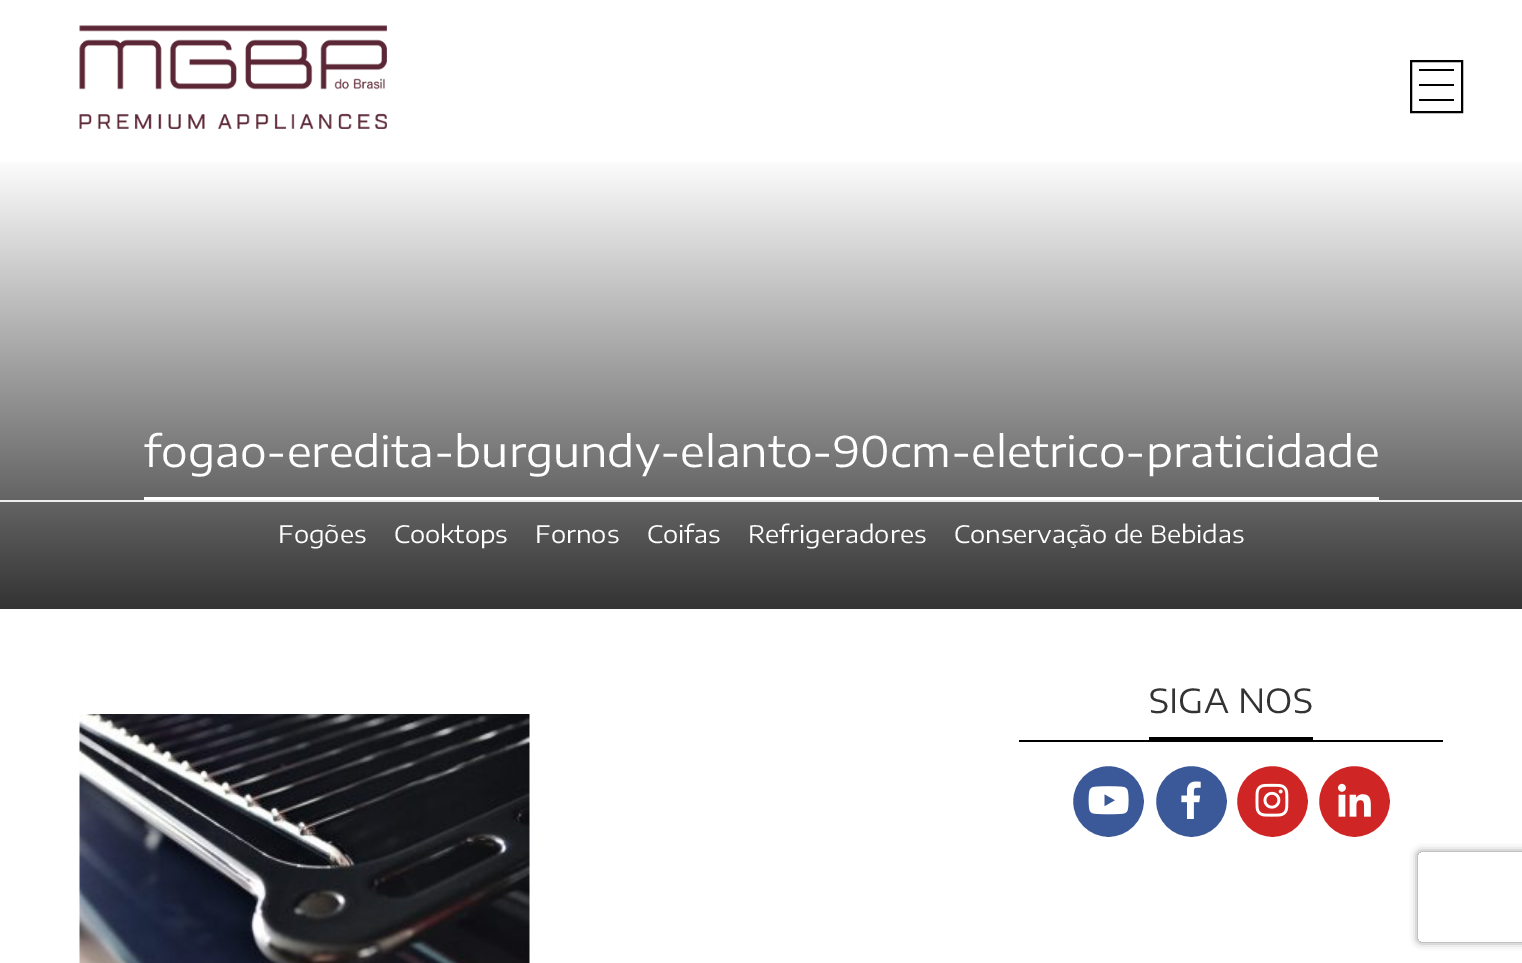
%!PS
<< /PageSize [1522 963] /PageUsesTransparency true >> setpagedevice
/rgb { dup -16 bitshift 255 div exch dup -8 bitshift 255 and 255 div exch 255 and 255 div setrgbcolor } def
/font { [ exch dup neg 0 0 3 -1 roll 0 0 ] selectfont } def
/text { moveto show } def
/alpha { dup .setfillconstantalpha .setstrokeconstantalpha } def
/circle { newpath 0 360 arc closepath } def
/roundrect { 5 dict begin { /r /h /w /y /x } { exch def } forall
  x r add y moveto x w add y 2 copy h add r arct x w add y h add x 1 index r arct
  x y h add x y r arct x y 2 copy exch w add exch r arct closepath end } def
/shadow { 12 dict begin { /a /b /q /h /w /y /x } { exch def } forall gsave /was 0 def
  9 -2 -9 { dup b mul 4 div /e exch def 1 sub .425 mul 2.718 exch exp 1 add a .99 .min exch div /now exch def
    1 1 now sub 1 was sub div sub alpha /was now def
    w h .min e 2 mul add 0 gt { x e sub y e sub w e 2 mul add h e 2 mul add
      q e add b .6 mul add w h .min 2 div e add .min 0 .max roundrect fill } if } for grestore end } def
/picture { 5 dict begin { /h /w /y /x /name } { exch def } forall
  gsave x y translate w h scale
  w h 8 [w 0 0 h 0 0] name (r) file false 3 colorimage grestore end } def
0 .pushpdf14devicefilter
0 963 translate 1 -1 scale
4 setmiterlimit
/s1 { /EncodeSansExpanded-Regular 42 font 16#FFFFFF rgb } def
/s2 { /EncodeSansExpanded-Regular 24 font 16#FFFFFF rgb } def
/s3 { /EncodeSansExpanded-Regular 33 font 16#333333 rgb } def
16#FFFFFF rgb
0 0 1522 963 rectfill
(pic1.raw) 79 25 308 104 picture
16#000000 rgb
2 setlinewidth
1411 61 51 51 rectstroke
1419 69 35 2 rectfill
1419 84 35 2 rectfill
1419 99 35 2 rectfill
gsave 0 162 moveto 1522 162 lineto 1522 609 lineto 0 609 lineto closepath clip newpath
<< /ShadingType 2 /ColorSpace /DeviceRGB /Coords [761 609 761 156] /Extend [true true] /Function << /FunctionType 2 /Domain [0 1] /C0 [0.2 0.2 0.2] /C1 [1 1 1] /N 1 >> >> shfill grestore
16#FFFFFF rgb
144 497 1235 3 rectfill
s1
(fogao-eredita-burgundy-elanto-90cm-eletrico-praticidade) 144 467 text
16#EEEEEE rgb
0 500 1522 2 rectfill
s2
(Fogões) 278 543 text
(Cooktops) 394 543 text
(Fornos) 535 543 text
(Coifas) 647 543 text
(Refrigeradores) 748 543 text
(Conservação de Bebidas) 954 543 text
16#000000 rgb
1019 740 424 2 rectfill
1149 737 164 3 rectfill
s3
(SIGA NOS) 1149 713 text
16#3B5998 rgb
1108.5 801.5 36.5 circle gsave fill grestore
16#FFFFFF rgb
stroke
(pic2.raw) 1088 786 41 29 picture
16#3B5998 rgb
1191.5 801.5 36.5 circle gsave fill grestore
16#FFFFFF rgb
stroke
(pic3.raw) 1181 781 20 38 picture
16#D02525 rgb
1272.5 801.5 36.5 circle gsave fill grestore
16#FFFFFF rgb
stroke
(pic4.raw) 1255 783 34 34 picture
16#D02525 rgb
1354.5 801.5 36.5 circle gsave fill grestore
16#FFFFFF rgb
stroke
(pic5.raw) 1338 783 33 34 picture
(pic6.raw) 79 714 451 249 picture
gsave
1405 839 moveto 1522 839 lineto 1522 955 lineto 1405 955 lineto closepath 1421 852 moveto 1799 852 lineto 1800.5 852 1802 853.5 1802 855 curveto 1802 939 lineto 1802 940.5 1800.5 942 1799 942 curveto 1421 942 lineto 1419.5 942 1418 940.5 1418 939 curveto 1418 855 lineto 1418 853.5 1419.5 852 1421 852 curveto closepath eoclip newpath
16#808080 rgb
1418 852 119 90 3 4 1 shadow
grestore
.poppdf14devicefilter showpage
